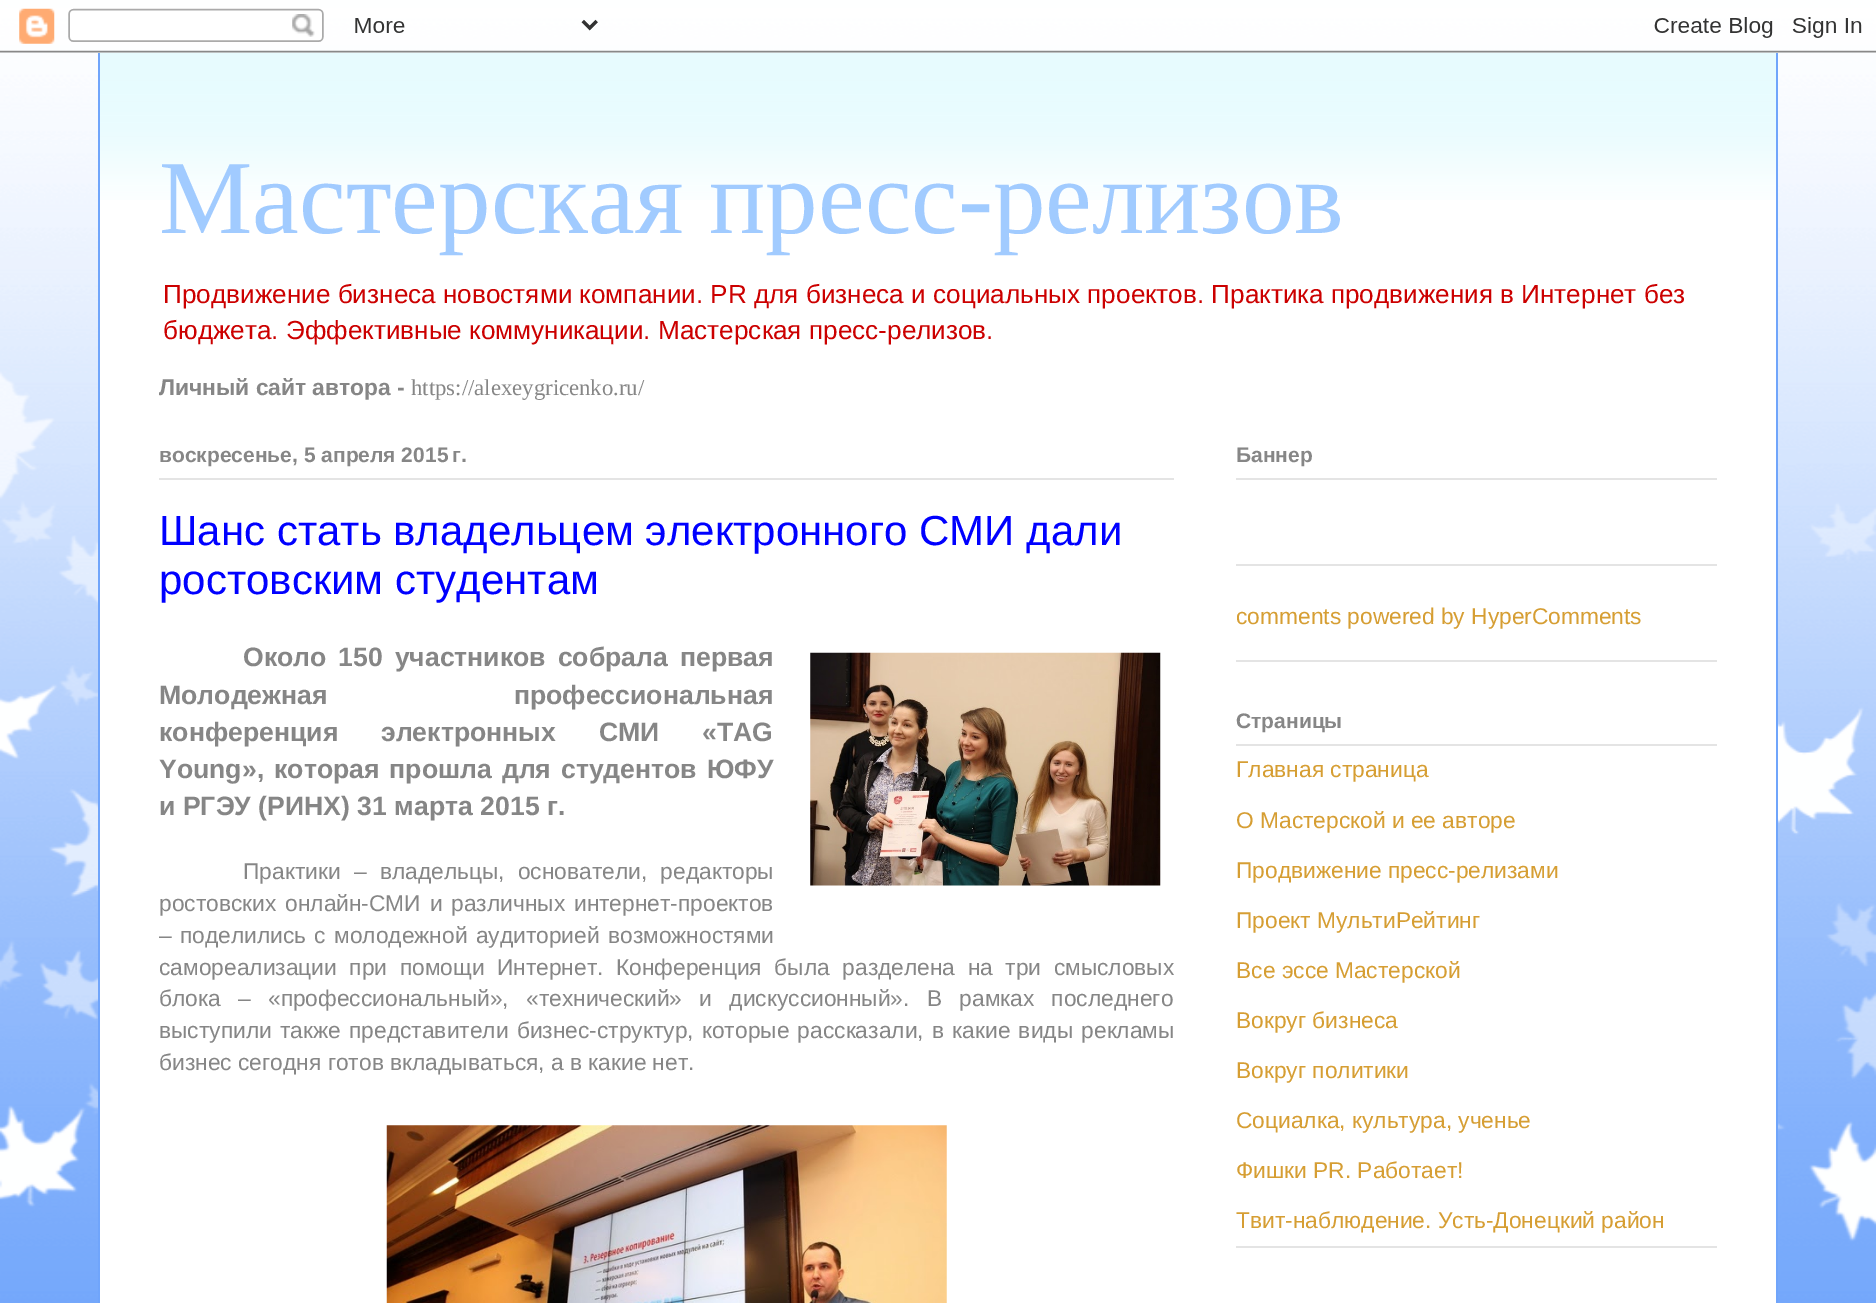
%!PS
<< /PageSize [1876 1303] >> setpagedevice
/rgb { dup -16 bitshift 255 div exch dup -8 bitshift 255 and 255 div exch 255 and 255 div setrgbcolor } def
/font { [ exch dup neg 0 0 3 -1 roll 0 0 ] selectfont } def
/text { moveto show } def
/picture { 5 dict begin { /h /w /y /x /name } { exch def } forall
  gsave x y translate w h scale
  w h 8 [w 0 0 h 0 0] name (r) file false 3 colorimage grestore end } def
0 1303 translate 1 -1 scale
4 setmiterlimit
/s1 { /LiberationSerif-Regular 105 font 16#A1CBFF rgb } def
/s2 { /LiberationSans-Regular 26.15 font 16#CC0000 rgb } def
/s3 { /LiberationSans-Bold 22.75 font 16#868686 rgb } def
/s4 { /LiberationSerif-Regular 22.75 font 16#868686 rgb } def
/s5 { /LiberationSans-Bold 21 font 16#868686 rgb } def
/s6 { /LiberationSans-Regular 42 font 16#0000FF rgb } def
/s7 { /LiberationSans-Bold 26.6 font 16#868686 rgb } def
/s8 { /LiberationSans-Regular 22.75 font 16#868686 rgb } def
/s9 { /LiberationSans-Regular 22.75 font 16#D69E33 rgb } def
16#70A5FB rgb
0 0 1876 1303 rectfill
(pic1.raw) 0 0 1876 1303 picture
16#FFFFFF rgb
100 53 1676 1250 rectfill
(pic3.raw) 98 52 1680 148 picture
(pic2.raw) 0 8 1876 45 picture
16#70A5FB rgb
1776 53 2 1250 rectfill
98 53 2 1250 rectfill
s1
(Мастерская пресс-релизов) 159 233 text
s2
(Продвижение бизнеса новостями компании. PR для бизнеса и социальных проектов. Практика продвижения в Интернет без) 163 303 text
(бюджета. Эффективные коммуникации. Мастерская пресс-релизов.) 163 339 text
s3
(Личный сайт автора -) 159 395 text
s4
(https://alexeygricenko.ru/) 411 395 text
16#E4E4E4 rgb
159 478 1015 2 rectfill
s5
(воскресенье, 5 апреля 2015 г.) 159 462 text
s6
(Шанс стать владельцем электронного СМИ дали) 159 545 text
(ростовским студентам) 159 594 text
/LiberationSans-Bold 26.6 font
16#868686 rgb
243 666 moveto 4.5 0 32 (Около 150 участников собрала первая) widthshow
159 704 moveto 179 0 32 (Молодежная профессиональная) widthshow
159 741 moveto 35.5 0 32 (конференция электронных СМИ «) widthshow
(TAG) 717 741 text
(Young) 159 778 text
242 778 moveto 2.5 0 32 (», которая прошла для студентов ЮФУ) widthshow
(и РГЭУ \(РИНХ\) 31 марта 2015 г.) 159 815 text
(pic4.raw) 810 652 351 234 picture
/LiberationSans-Regular 22.75 font
243 879 moveto 7 0 32 (Практики – владельцы, основатели, редакторы) widthshow
159 911 moveto 2.5 0 32 (ростовских онлайн-СМИ и различных интернет-проектов) widthshow
159 943 moveto 2 0 32 (– поделились с молодежной аудиторией возможностями) widthshow
159 975 moveto 6.25 0 32 (самореализации при помощи Интернет. Конференция была разделена на три смысловых) widthshow
159 1006 moveto 11 0 32 (блока – «профессиональный», «технический» и дискуссионный». В рамках последнего) widthshow
159 1038 moveto 2 0 32 (выступили также представители бизнес-структур, которые рассказали, в какие виды рекламы) widthshow
(бизнес сегодня готов вкладываться, а в какие нет.) 159 1070 text
(pic5.raw) 386 1125 561 178 picture
16#E4E4E4 rgb
1236 564 481 2 rectfill
1236 478 481 2 rectfill
s5
(Баннер) 1236 462 text
16#E4E4E4 rgb
1236 660 481 2 rectfill
s9
(comments powered by HyperComments) 1236 624 text
16#E4E4E4 rgb
1236 1246 481 2 rectfill
1236 744 481 2 rectfill
s5
(Страницы) 1236 728 text
s9
(Главная страница) 1236 777 text
(О Мастерской и ее авторе) 1236 828 text
(Продвижение пресс-релизами) 1236 878 text
(Проект МультиРейтинг) 1236 928 text
(Все эссе Мастерской) 1236 978 text
(Вокруг бизнеса) 1236 1028 text
(Вокруг политики) 1236 1078 text
(Социалка, культура, ученье) 1236 1128 text
(Фишки PR. Работает!) 1236 1178 text
(Твит-наблюдение. Усть-Донецкий район) 1236 1228 text
showpage
